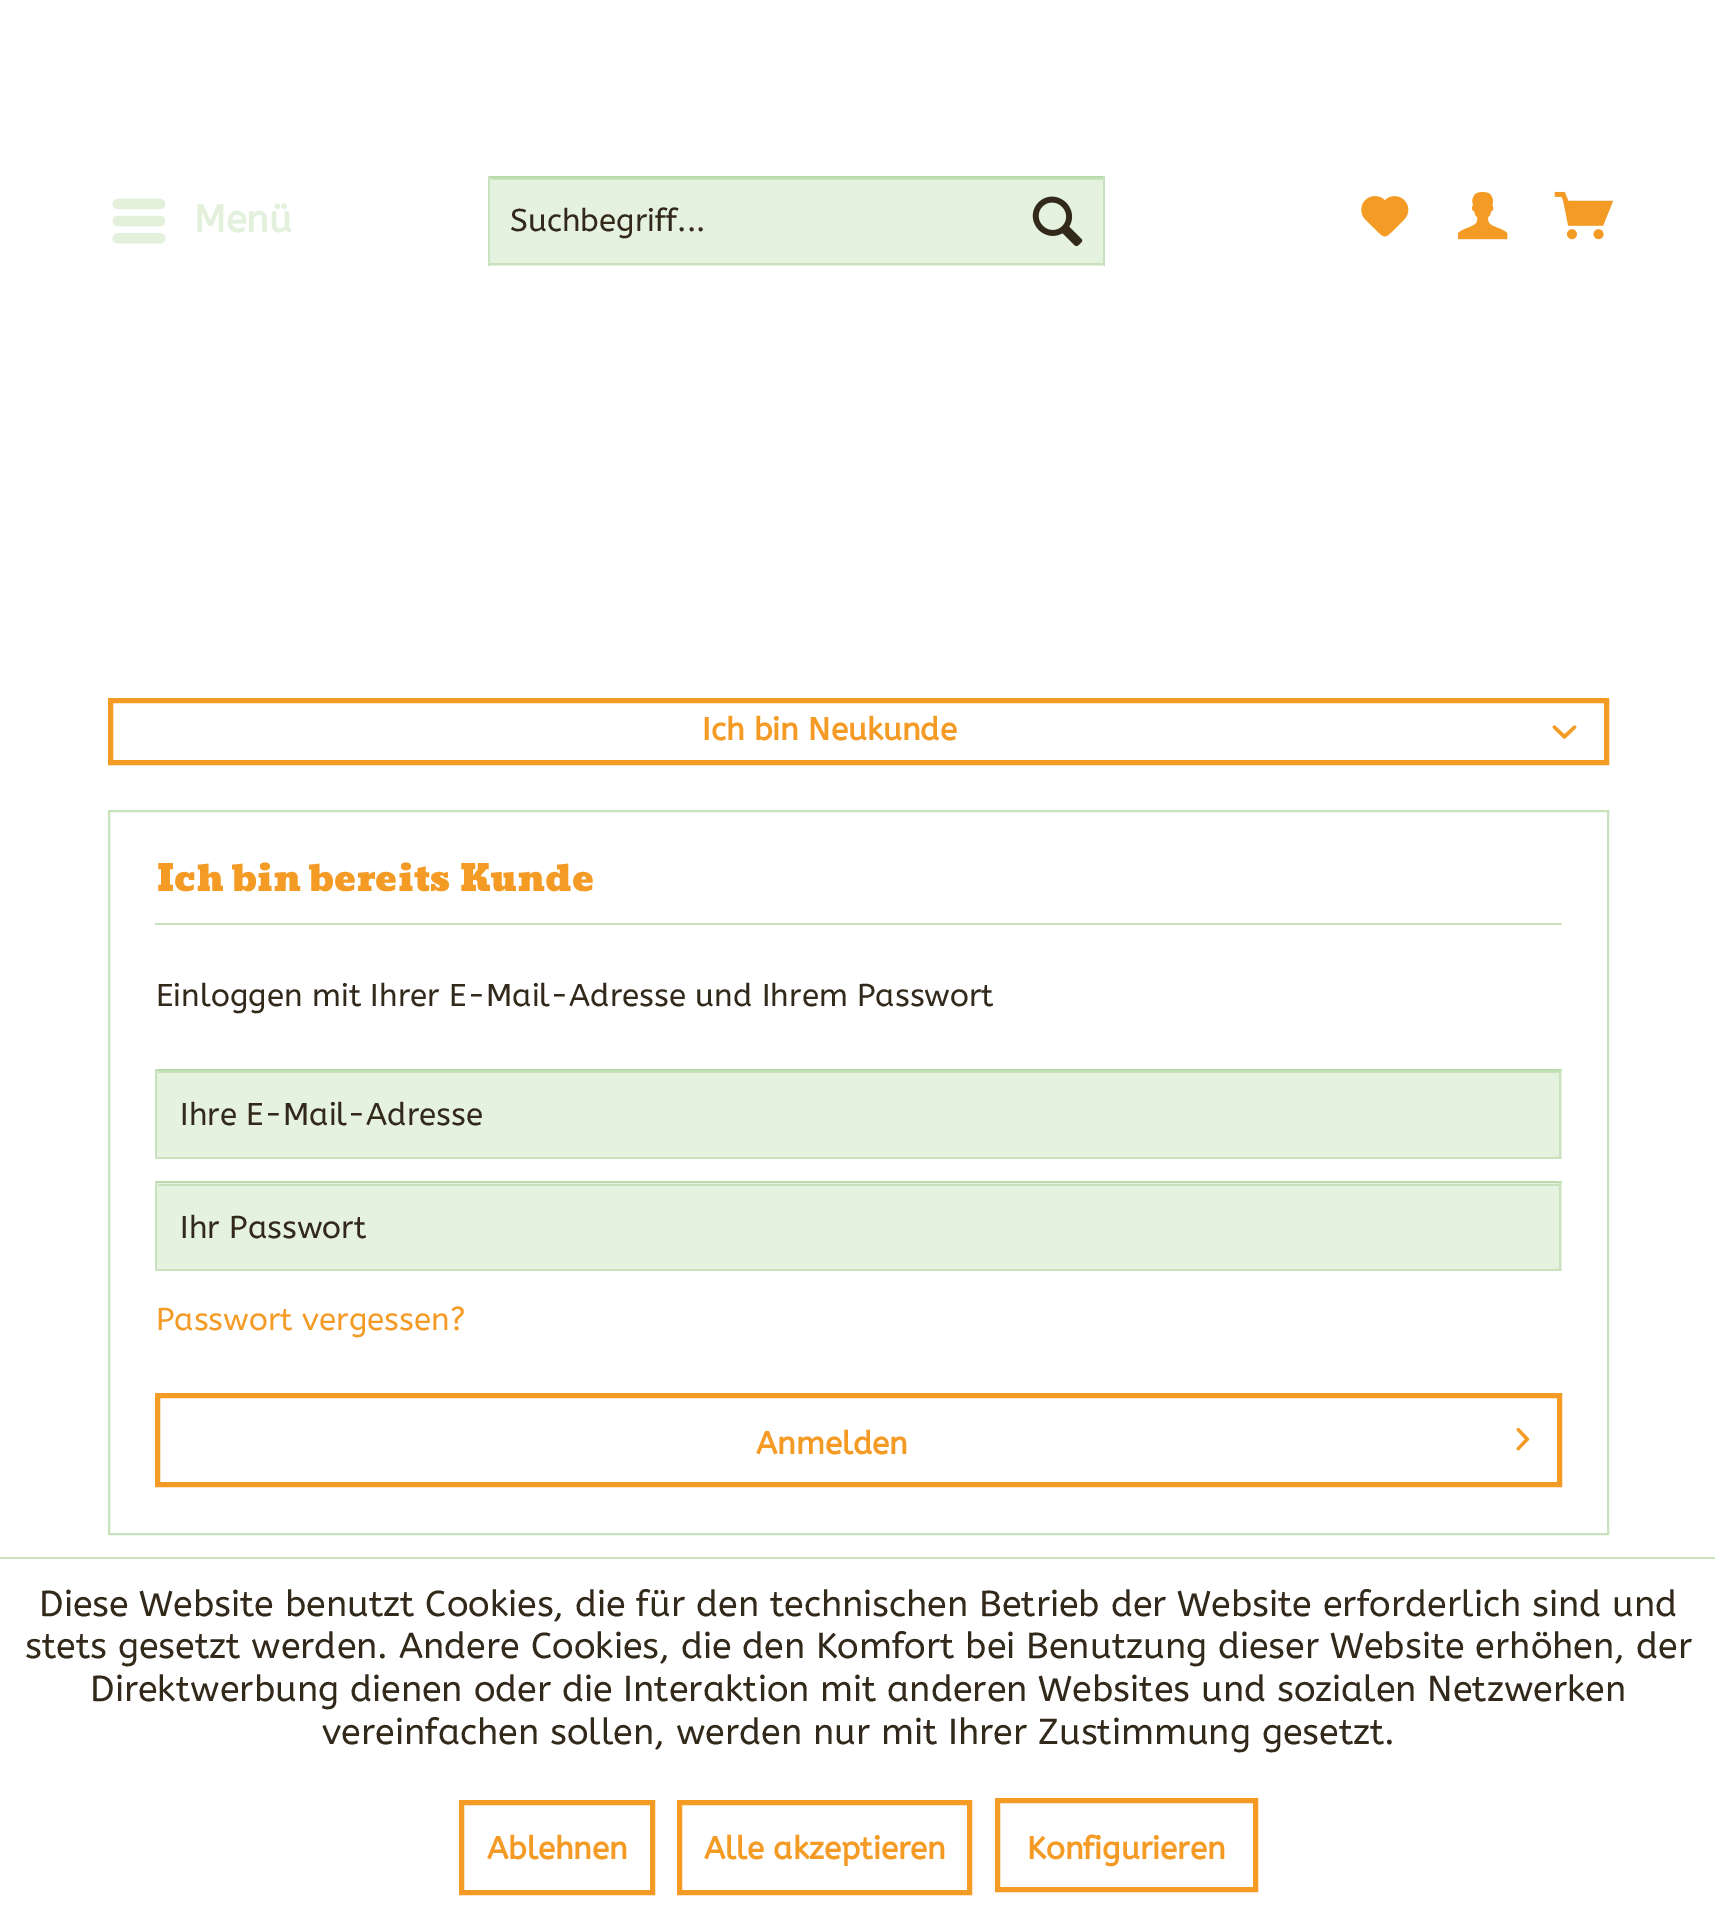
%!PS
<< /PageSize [1715 1917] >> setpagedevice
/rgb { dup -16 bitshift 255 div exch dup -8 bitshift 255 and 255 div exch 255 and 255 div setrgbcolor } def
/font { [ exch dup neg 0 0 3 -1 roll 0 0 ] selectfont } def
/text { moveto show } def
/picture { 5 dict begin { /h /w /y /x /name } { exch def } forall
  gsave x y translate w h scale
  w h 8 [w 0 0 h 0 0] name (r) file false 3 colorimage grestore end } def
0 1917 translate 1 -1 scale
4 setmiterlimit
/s1 { /ABeeZee-Bold 38 font 16#E2F0DC rgb } def
/s2 { /ABeeZee-Regular 31.5 font 16#32291B rgb } def
/s3 { /ABeeZee-Bold 31.5 font 16#F49B25 rgb } def
/s4 { /Bevan-Regular 36 font 16#F49B25 rgb } def
/s5 { /ABeeZee-Regular 31.5 font 16#F49B25 rgb } def
/s6 { /ABeeZee-Regular 36 font 16#32291B rgb } def
16#FFFFFF rgb
0 0 1715 1917 rectfill
(pic1.raw) 112 198 54 46 picture
s1
(Menü) 194 232 text
16#E5F2E0 rgb
490 178 613 88 rectfill
16#C7E2BC rgb
491 178 612 2 rectfill
16#B9DBAA rgb
488 176 617 2 rectfill
16#C7E2BC rgb
1103 176 2 90 rectfill
488 263 617 2 rectfill
488 176 2 90 rectfill
s2
(Suchbegriff...) 510 231 text
(pic2.raw) 1032 196 51 51 picture
(pic3.raw) 1361 196 48 41 picture
(pic4.raw) 1458 191 50 49 picture
(pic5.raw) 1554 191 60 49 picture
16#F49B25 rgb
5 setlinewidth
110.5 700.5 1496 62 rectstroke
s3
(Ich bin Neukunde) 702 740 text
(pic6.raw) 1552 725 25 14 picture
16#C7E2BC rgb
2 setlinewidth
109 811 1499 723 rectstroke
155 923 1407 2 rectfill
s4
(Ich bin bereits Kunde) 156 891 text
s2
(Einloggen mit Ihrer E-Mail-Adresse und Ihrem Passwort) 156 1006 text
16#E5F2E0 rgb
157 1071 1405 86 rectfill
16#C7E2BC rgb
158 1071 1401 2 rectfill
16#B9DBAA rgb
155 1069 1407 2 rectfill
16#C7E2BC rgb
1559 1069 2 90 rectfill
155 1157 1407 2 rectfill
155 1069 2 90 rectfill
s2
(Ihre E-Mail-Adresse) 180 1125 text
16#E5F2E0 rgb
157 1183 1405 86 rectfill
16#C7E2BC rgb
158 1184 1401 2 rectfill
16#B9DBAA rgb
155 1181 1407 2 rectfill
16#C7E2BC rgb
1559 1181 2 90 rectfill
155 1269 1407 2 rectfill
155 1181 2 90 rectfill
s2
(Ihr Passwort) 180 1238 text
s5
(Passwort vergessen?) 156 1330 text
5 setlinewidth
157.5 1395.5 1402 89 rectstroke
s3
(Anmelden) 756 1454 text
(pic7.raw) 1516 1427 14 24 picture
16#C7E2BC rgb
0 1557 1715 2 rectfill
s6
(Diese Website benutzt Cookies, die für den technischen Betrieb der Website erforderlich sind und) 39 1616 text
(stets gesetzt werden. Andere Cookies, die den Komfort bei Benutzung dieser Website erhöhen, der) 25 1658 text
(Direktwerbung dienen oder die Interaktion mit anderen Websites und sozialen Netzwerken) 90 1701 text
(vereinfachen sollen, werden nur mit Ihrer Zustimmung gesetzt.) 322 1744 text
16#F49B25 rgb
461.5 1802.5 191 90 rectstroke
s3
(Ablehnen) 487 1859 text
679.5 1802.5 290 90 rectstroke
(Alle akzeptieren) 704 1859 text
997.5 1800.5 258 89 rectstroke
(Konfigurieren) 1027 1859 text
showpage
